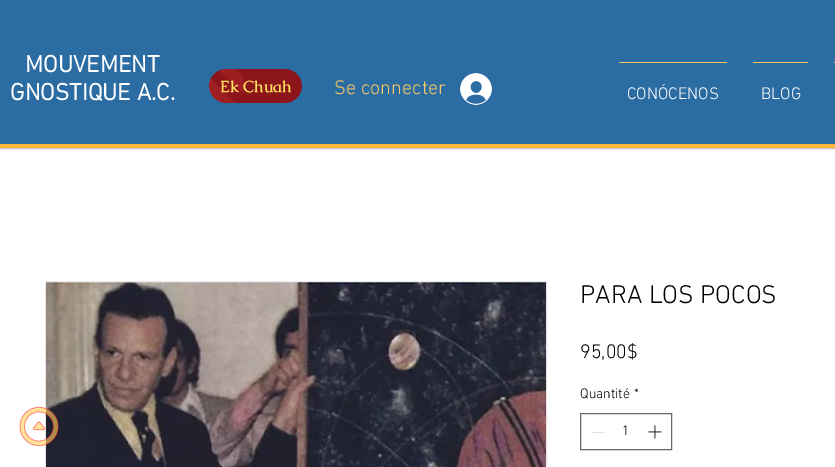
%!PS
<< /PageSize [835 467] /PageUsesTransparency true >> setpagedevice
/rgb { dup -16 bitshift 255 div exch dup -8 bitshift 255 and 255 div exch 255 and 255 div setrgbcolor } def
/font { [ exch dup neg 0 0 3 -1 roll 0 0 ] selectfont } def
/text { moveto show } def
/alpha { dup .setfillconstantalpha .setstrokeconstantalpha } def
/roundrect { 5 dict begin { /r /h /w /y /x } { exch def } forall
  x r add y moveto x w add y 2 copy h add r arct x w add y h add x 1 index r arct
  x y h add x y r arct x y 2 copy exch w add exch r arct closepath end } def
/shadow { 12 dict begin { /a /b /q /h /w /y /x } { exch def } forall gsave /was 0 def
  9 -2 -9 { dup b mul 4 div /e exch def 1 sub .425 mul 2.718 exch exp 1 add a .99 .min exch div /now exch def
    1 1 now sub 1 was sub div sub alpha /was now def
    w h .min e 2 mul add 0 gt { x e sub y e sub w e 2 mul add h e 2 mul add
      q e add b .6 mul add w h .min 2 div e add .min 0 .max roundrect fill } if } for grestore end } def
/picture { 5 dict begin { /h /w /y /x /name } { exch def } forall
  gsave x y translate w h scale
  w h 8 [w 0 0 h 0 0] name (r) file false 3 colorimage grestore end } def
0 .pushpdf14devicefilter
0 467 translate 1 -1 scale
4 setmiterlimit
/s1 { /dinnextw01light-Bold 24 font 16#FFFFFF rgb } def
/s2 { /Caudex-Bold 16 font 16#FFDE5F rgb } def
/s3 { /dinnextw01light-Light 20 font 16#FAC761 rgb } def
/s4 { /dinnextw01light-Light 17 font 16#FFFFFF rgb } def
/s5 { /dinnextw01light-Light 26 font 16#000000 rgb } def
/s6 { /dinnextw01light-Light 20 font 16#000000 rgb } def
/s7 { /dinnextw01light-Light 14 font 16#000000 rgb } def
16#FFFFFF rgb
0 0 835 467 rectfill
16#000000 rgb
0 0 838 148 0 1 0.7 shadow
16#FFB938 rgb
0 144 835 4 rectfill
16#2B6CA3 rgb
0 0 835 144 rectfill
s1
(MOUVEMENT) 25 72 text
(GNOSTIQUE A.C.) 10 100 text
(pic1.raw) 209 69 93 34 picture
s2
(Ek Chuah) 220 92 text
s3
(Se connecter) 334 94 text
(pic2.raw) 460 73 32 32 picture
834 62 1 1 rectfill
619 62 108 1 rectfill
s4
(CONÓCENOS) 627 99 text
16#FAC761 rgb
753 62 55 1 rectfill
s4
(BLOG) 761 99 text
16#E8E6E6 rgb
45.5 281.5 501 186 rectstroke
(pic4.raw) 46 282 500 185 picture
(pic3.raw) 19 406 40 41 picture
s5
(PARA LOS POCOS) 580 303 text
s6
(95,00$) 580 358 text
s7
(Quantité) 580 398 text
(*) 634 398 text
16#666666 rgb
580.5 413.5 91 36 rectstroke
16#E3E3E3 rgb
592 432 13 1 rectfill
s7
(1) 622 435 text
(pic5.raw) 648 425 14 14 picture
.poppdf14devicefilter showpage
